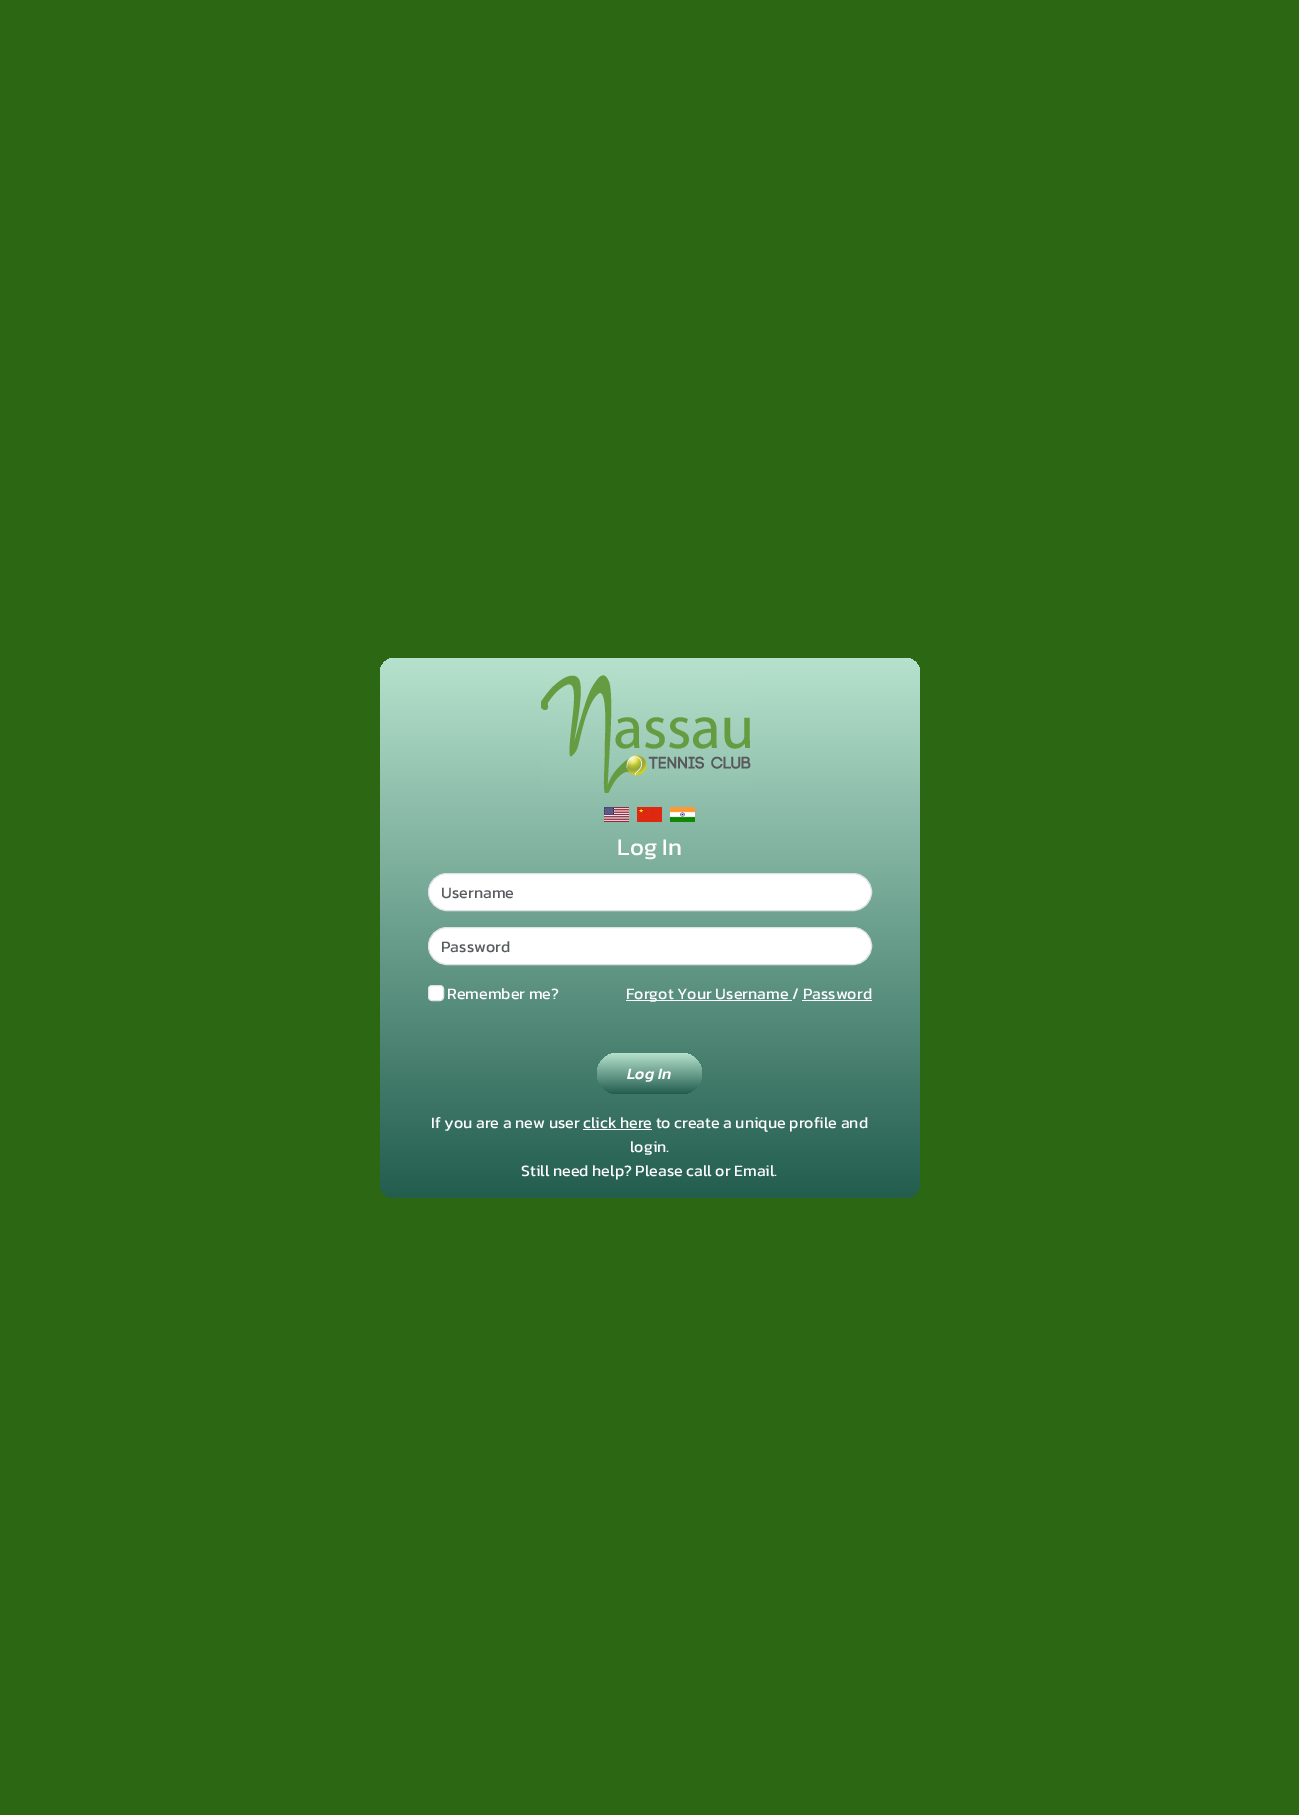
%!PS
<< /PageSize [1299 1815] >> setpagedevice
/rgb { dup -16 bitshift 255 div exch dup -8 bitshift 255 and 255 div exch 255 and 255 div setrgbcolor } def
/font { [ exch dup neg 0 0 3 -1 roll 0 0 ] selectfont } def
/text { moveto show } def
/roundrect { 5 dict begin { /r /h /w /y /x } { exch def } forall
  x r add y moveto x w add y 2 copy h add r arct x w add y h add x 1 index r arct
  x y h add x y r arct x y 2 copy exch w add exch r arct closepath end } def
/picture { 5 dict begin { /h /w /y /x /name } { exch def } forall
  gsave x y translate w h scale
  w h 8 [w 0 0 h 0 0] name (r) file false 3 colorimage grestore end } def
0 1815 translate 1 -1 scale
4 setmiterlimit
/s1 { /Kanit-Regular 24 font 16#FFFFFF rgb } def
/s2 { /Kanit-Regular 16 font 16#595C5F rgb } def
/s3 { /Kanit-Regular 16 font 16#FFFFFF rgb } def
/s4 { /Kanit-MediumItalic 16 font 16#FFFFFF rgb } def
16#2C6713 rgb
0 0 1299 1815 rectfill
gsave 380 658 540 540 15 roundrect clip newpath
<< /ShadingType 2 /ColorSpace /DeviceRGB /Coords [650 658 650 1198] /Extend [true true] /Function << /FunctionType 2 /Domain [0 1] /C0 [0.714 0.886 0.804] /C1 [0.133 0.365 0.306] /N 1 >> >> shfill grestore
(pic1.raw) 541 675 210 118 picture
(pic2.raw) 604 807 25 15 picture
(pic3.raw) 637 807 25 15 picture
(pic4.raw) 670 807 25 15 picture
s1
(Log In) 617 855 text
428.5 873.5 443 37 18.5 roundrect gsave fill grestore
16#DEE2E6 rgb
stroke
s2
(Username) 441 898 text
16#FFFFFF rgb
428.5 927.5 443 37 18.5 roundrect gsave fill grestore
16#DEE2E6 rgb
stroke
s2
(Password) 441 952 text
16#FFFFFF rgb
428.5 985.5 15 15 3.5 roundrect gsave fill grestore
16#DEE2E6 rgb
stroke
s3
(Remember me?) 447 999 text
626 1000 166 1 rectfill
(Forgot Your Username / Password) 626 999 text
802 1000 70 1 rectfill
gsave 597 1053 105 41 20.5 roundrect clip newpath
<< /ShadingType 2 /ColorSpace /DeviceRGB /Coords [650 1053 650 1094] /Extend [true true] /Function << /FunctionType 2 /Domain [0 1] /C0 [0.714 0.886 0.804] /C1 [0.133 0.365 0.306] /N 1 >> >> shfill grestore
s4
(Log In) 627 1079 text
s3
(If you are a new user click here to create a unique profile and) 431 1128 text
583 1129 69 1 rectfill
(login.) 630 1152 text
(Still need help? Please call or Email.) 521 1176 text
showpage
